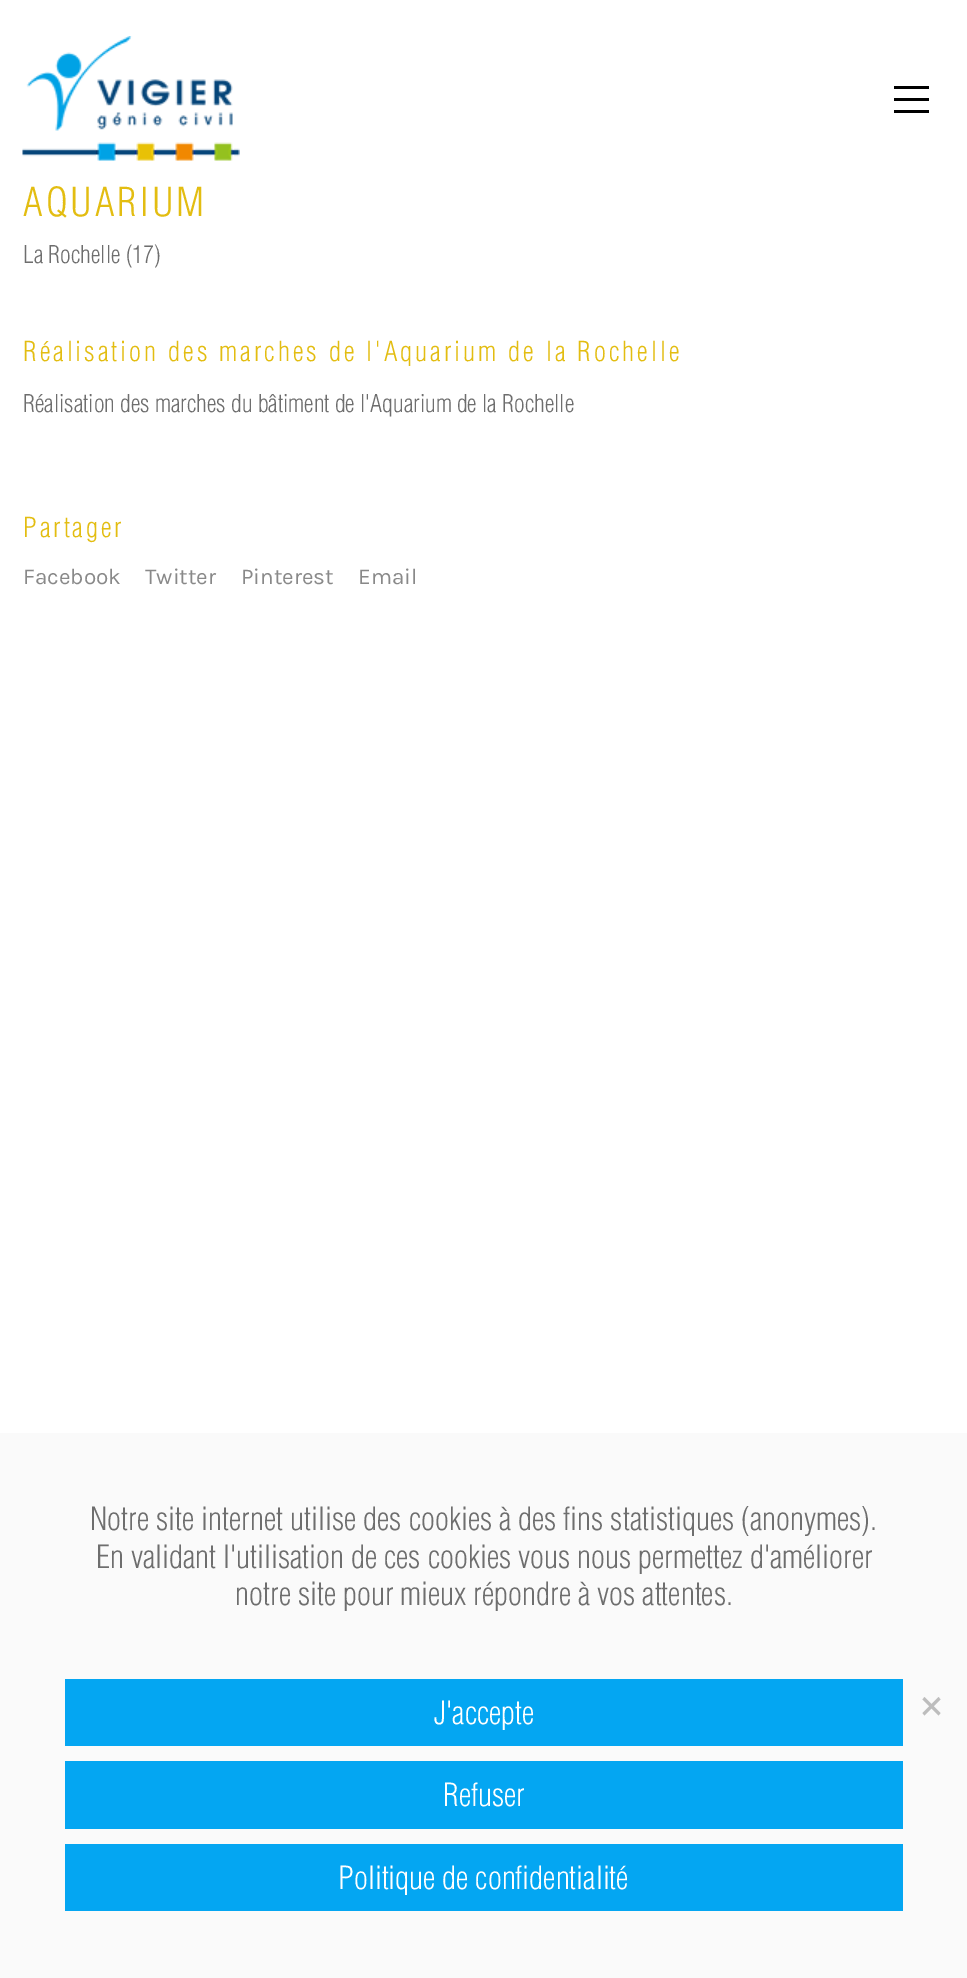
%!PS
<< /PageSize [967 1978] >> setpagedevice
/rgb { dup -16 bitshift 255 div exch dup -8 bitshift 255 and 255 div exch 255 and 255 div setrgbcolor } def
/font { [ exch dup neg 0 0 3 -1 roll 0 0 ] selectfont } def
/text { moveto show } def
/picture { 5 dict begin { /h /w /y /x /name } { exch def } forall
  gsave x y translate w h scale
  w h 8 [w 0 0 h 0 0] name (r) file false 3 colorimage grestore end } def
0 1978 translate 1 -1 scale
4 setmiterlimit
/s1 { /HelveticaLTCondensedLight-Light 24 font 16#6E6E6E rgb } def
/s2 { /Karla-Regular 22.5 font 16#898989 rgb } def
/s3 { /HelveticaLTCondensedLight-Light 31.35 font 16#6E6E6E rgb } def
/s4 { /HelveticaLTCondensedLight-Light 31.35 font 16#FFFFFF rgb } def
16#FFFFFF rgb
0 0 967 1978 rectfill
(pic1.raw) 22 36 218 125 picture
16#000000 rgb
894 98 35 3 rectfill
894 86 35 3 rectfill
894 110 35 3 rectfill
/HelveticaLTCondensedLight-Light 39 font
16#E3BD11 rgb
23 216 moveto 3 0 (AQUARIUM) ashow
s1
(La Rochelle \(17\)) 23 263 text
/HelveticaLTCondensedLight-Light 27 font
16#E3BD11 rgb
23 361 moveto 3 0 (Réalisation des marches de l'Aquarium de la Rochelle) ashow
s1
(Réalisation des marches du bâtiment de l'Aquarium de la Rochelle) 23 412 text
/HelveticaLTCondensedLight-Light 27 font
16#E3BD11 rgb
23 537 moveto 3 0 (Partager) ashow
s2
(Facebook) 23 584 text
(Twitter) 145 584 text
(Pinterest) 241 584 text
(Email) 358 584 text
16#FAFAFA rgb
0 1433 967 545 rectfill
s3
(Notre site internet utilise des cookies à des fins statistiques \(anonymes\).) 90 1530 text
(En validant l'utilisation de ces cookies vous nous permettez d'améliorer) 96 1568 text
(notre site pour mieux répondre à vos attentes.) 235 1605 text
16#04A6F2 rgb
65 1679 838 67 rectfill
s4
(J'accepte) 434 1724 text
16#04A6F2 rgb
65 1761 838 68 rectfill
s4
(Refuser) 443 1806 text
16#04A6F2 rgb
65 1844 838 67 rectfill
s4
(Politique de confidentialité) 338 1889 text
16#BDBDBD rgb
938.5 1697 moveto 940.5 1699.5 lineto 924.5 1715.5 lineto 922.5 1713 lineto closepath fill
922.5 1699.5 moveto 924.5 1697 lineto 940.5 1713 lineto 938.5 1715.5 lineto closepath fill
showpage
